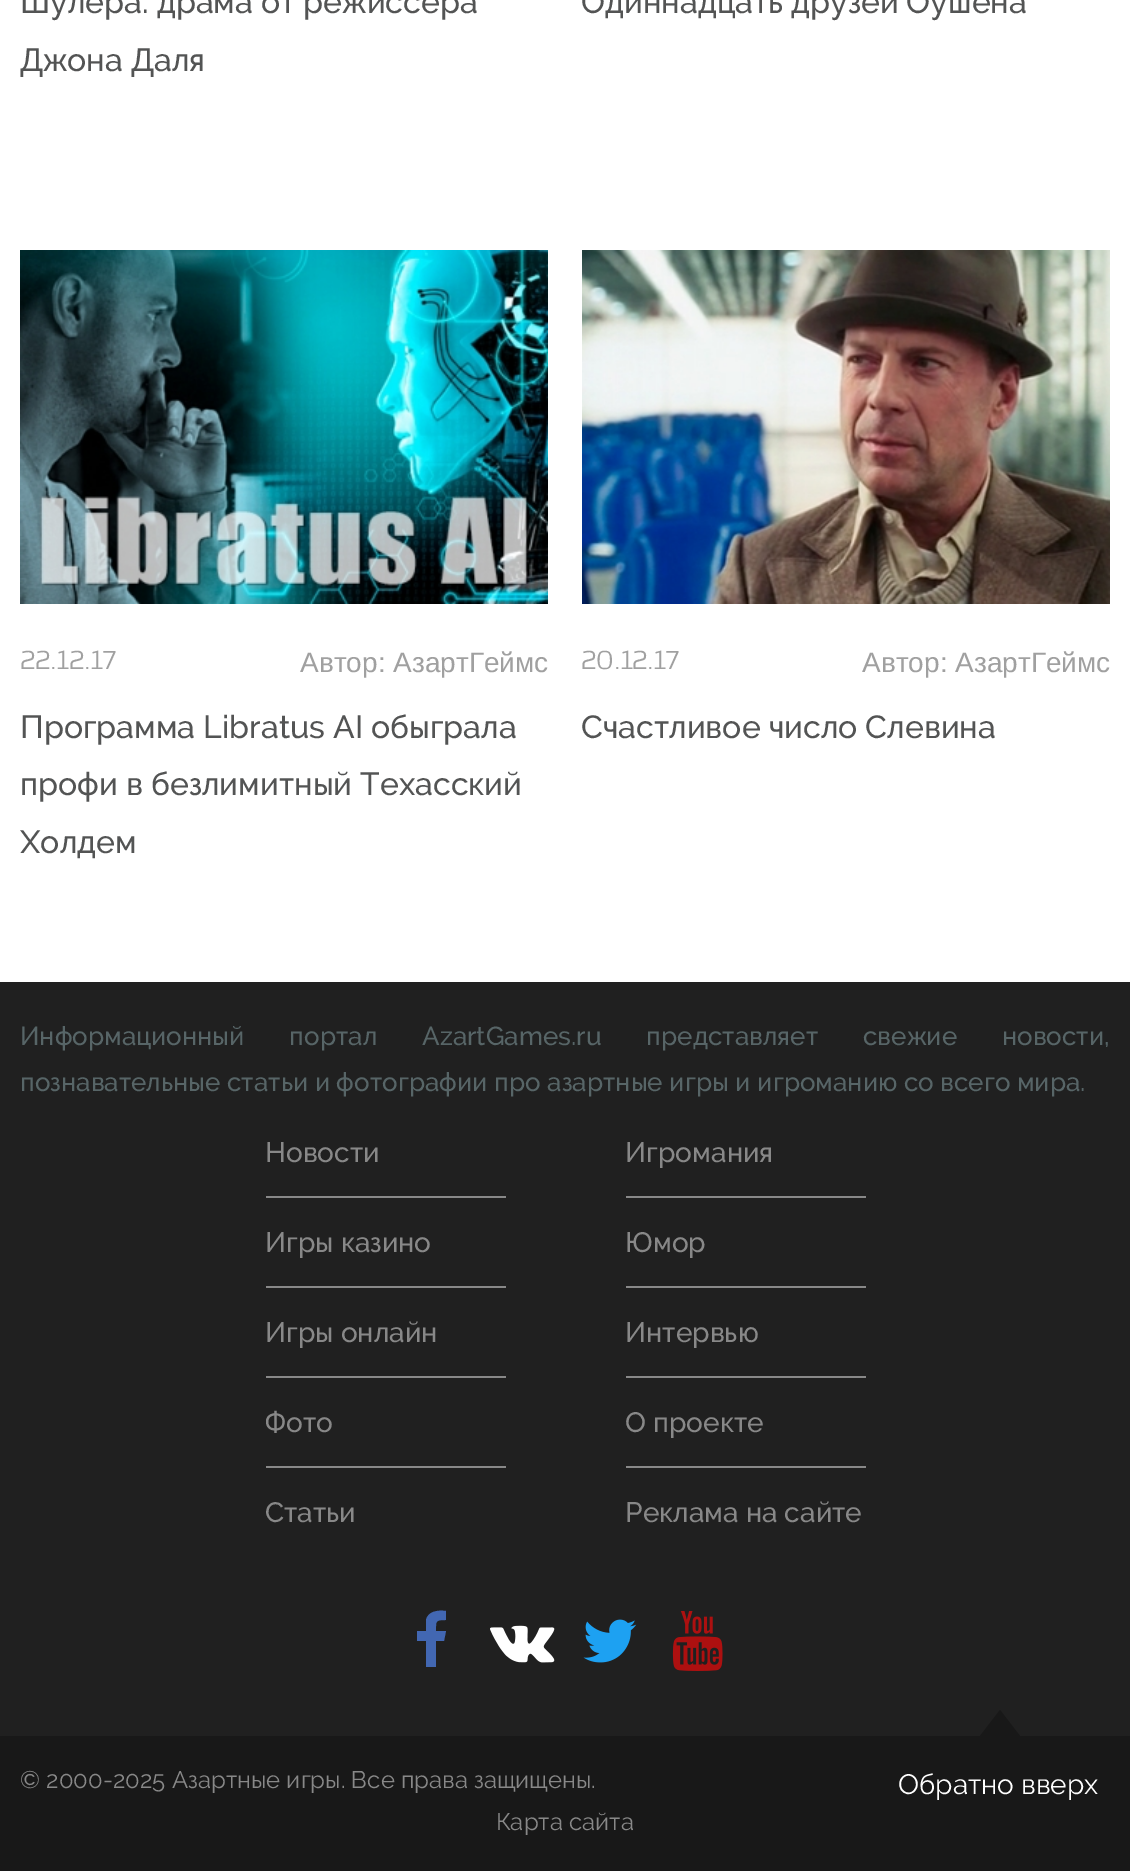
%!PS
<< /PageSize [1130 1871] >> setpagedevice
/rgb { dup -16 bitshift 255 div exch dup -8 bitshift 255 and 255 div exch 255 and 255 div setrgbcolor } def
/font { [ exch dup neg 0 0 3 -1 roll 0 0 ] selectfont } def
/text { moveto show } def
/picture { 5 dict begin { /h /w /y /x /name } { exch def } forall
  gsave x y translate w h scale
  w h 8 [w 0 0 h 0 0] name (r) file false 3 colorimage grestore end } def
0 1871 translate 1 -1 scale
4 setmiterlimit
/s1 { /Raleway-Medium 32 font 16#535454 rgb } def
/s2 { /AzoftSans-Regular 28 font 16#A0A0A0 rgb } def
/s3 { /LiberationSans-Regular 28 font 16#A0A0A0 rgb } def
/s4 { /Raleway-Medium 26 font 16#576567 rgb } def
/s5 { /Raleway-Medium 28 font 16#888888 rgb } def
/s6 { /Raleway-Regular 24 font 16#888888 rgb } def
/s7 { /Raleway-Regular 28 font 16#FFFFFF rgb } def
16#FFFFFF rgb
0 0 1130 1871 rectfill
s1
(Шулера: драма от режиссера) 20 13 text
(Джона Даля) 20 71 text
(Одиннадцать друзей Оушена) 581 13 text
(pic1.raw) 20 250 528 354 picture
s2
(22.12.17) 20 669 text
s3
(Автор: АзартГеймс) 300 672 text
s1
(Программа Libratus AI обыграла) 20 738 text
(профи в безлимитный Техасский) 20 795 text
(Холдем) 20 853 text
(pic2.raw) 582 250 528 354 picture
s2
(20.12.17) 581 669 text
s3
(Автор: АзартГеймс) 862 672 text
s1
(Счастливое число Слевина) 581 738 text
16#202020 rgb
0 982 1130 754 rectfill
/Raleway-Medium 26 font
16#576567 rgb
20 1045 moveto 38.5 0 32 (Информационный портал AzartGames.ru представляет свежие новости,) widthshow
(познавательные статьи и фотографии про азартные игры и игроманию со всего мира.) 20 1091 text
16#888888 rgb
266 1196 240 2 rectfill
s5
(Новости) 265 1162 text
626 1196 240 2 rectfill
(Игромания) 625 1162 text
266 1286 240 2 rectfill
(Игры казино) 265 1252 text
626 1286 240 2 rectfill
(Юмор) 625 1252 text
266 1376 240 2 rectfill
(Игры онлайн) 265 1342 text
626 1376 240 2 rectfill
(Интервью) 625 1342 text
266 1466 240 2 rectfill
(Фото) 265 1432 text
626 1466 240 2 rectfill
(О проекте) 625 1432 text
(Статьи) 265 1522 text
(Реклама на сайте) 625 1522 text
16#4267B2 rgb
446 1611 moveto 446 1620 lineto 435 1620 436 1621 436 1631 curveto 446 1631 lineto 444 1641 lineto 436 1641 lineto 436 1667 lineto 426 1667 lineto 426 1641 lineto 417 1641 lineto 417 1631 lineto 426 1631 lineto 426 1620 lineto 428 1611 438 1610 446 1611 curveto closepath fill
(pic3.raw) 490 1625 65 38 picture
(pic4.raw) 583 1619 54 44 picture
(pic5.raw) 672 1611 51 60 picture
16#181818 rgb
0 1736 1130 135 rectfill
s6
(© 2000-2025 Азартные игры. Все права защищены.) 20 1788 text
16#181818 rgb
1020 1736 moveto 980 1736 lineto 1000 1710 lineto closepath fill
s7
(Обратно вверх) 898 1794 text
s6
(Карта сайта) 496 1830 text
showpage
